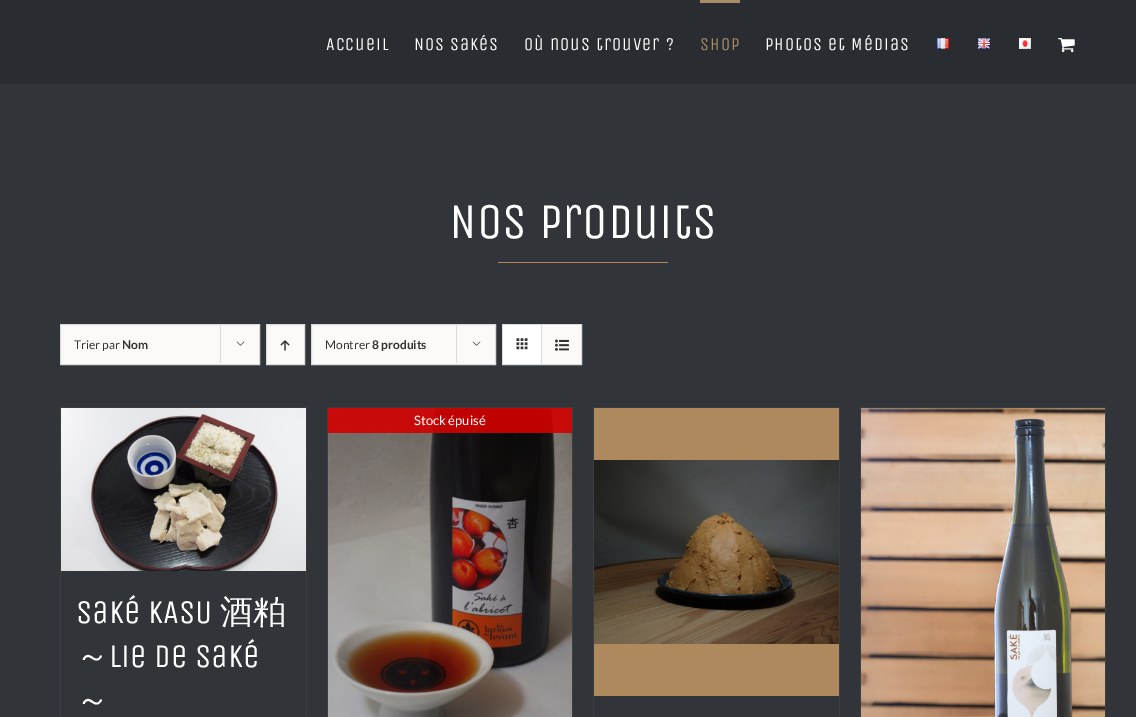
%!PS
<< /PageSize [1136 717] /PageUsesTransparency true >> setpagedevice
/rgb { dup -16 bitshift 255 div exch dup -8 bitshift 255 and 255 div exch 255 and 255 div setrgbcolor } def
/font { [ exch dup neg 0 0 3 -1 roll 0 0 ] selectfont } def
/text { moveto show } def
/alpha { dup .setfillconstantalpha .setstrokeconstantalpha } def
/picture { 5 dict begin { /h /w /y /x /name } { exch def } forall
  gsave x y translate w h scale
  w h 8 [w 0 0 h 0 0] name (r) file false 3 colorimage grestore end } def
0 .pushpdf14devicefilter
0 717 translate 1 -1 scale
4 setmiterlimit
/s1 { /UnicaOne-Regular 50 font 16#FFFFFF rgb } def
/s2 { /Lato-Regular 12 font 16#333333 rgb } def
/s3 { /Lato-Bold 12 font 16#333333 rgb } def
/s4 { /Lato-Regular 13 font 16#FFFFFF rgb } def
/s5 { /UnicaOne-Regular 33 font 16#FFFFFF rgb } def
/s6 { /WenQuanYiZenHei-Medium 33 font 16#FFFFFF rgb } def
16#313539 rgb
0 0 1136 717 rectfill
16#292C30 rgb
0 0 1136 84 rectfill
/UnicaOne-Regular 18 font
16#FFFFFF rgb
326 50 moveto 1 0 (Accueil) ashow
414 50 moveto 1 0 (Nos sakés) ashow
524 50 moveto 1 0 (Où nous trouver ?) ashow
16#AB8B65 rgb
700 0 40 3 rectfill
700 50 moveto 1 0 (Shop) ashow
16#FFFFFF rgb
765 50 moveto 1 0 (Photos et Médias) ashow
(pic1.raw) 937 38 12 11 picture
(pic2.raw) 978 38 12 11 picture
(pic3.raw) 1019 38 12 11 picture
(pic4.raw) 1058 38 17 15 picture
s1
(Nos produits) 449 238 text
16#AE895D rgb
498 262 170 1 rectfill
16#FBFAF9 rgb
60.5 324.5 moveto 259.5 324.5 lineto 259.5 364.5 lineto 60.5 364.5 lineto closepath gsave fill grestore
16#DBDBDB rgb
stroke
s2
(Trier par) 74 349 text
s3
(Nom) 122 349 text
16#DBDBDB rgb
220 324 1 39 rectfill
(pic5.raw) 236 341 9 5 picture
16#FBFAF9 rgb
266.5 324.5 moveto 304.5 324.5 lineto 304.5 364.5 lineto 266.5 364.5 lineto closepath gsave fill grestore
16#DBDBDB rgb
stroke
(pic6.raw) 280 340 10 11 picture
16#FBFAF9 rgb
311.5 324.5 moveto 495.5 324.5 lineto 495.5 364.5 lineto 311.5 364.5 lineto closepath gsave fill grestore
16#DBDBDB rgb
stroke
s2
(Montrer) 325 349 text
s3
(8 produits) 372 349 text
16#DBDBDB rgb
456 324 1 39 rectfill
(pic5.raw) 472 341 9 5 picture
502.5 324.5 79 40 rectstroke
16#FFFFFF rgb
503 325 38 39 rectfill
16#DBDBDB rgb
541 325 1 39 rectfill
(pic7.raw) 516 338 12 12 picture
16#FBFAF9 rgb
542 325 39 39 rectfill
(pic8.raw) 555 339 14 12 picture
16#3E3E3E rgb
327 407 246 1 rectfill
572 407 1 310 rectfill
327 407 1 310 rectfill
(pic9.raw) 328 408 244 309 picture
0.9 alpha
16#D20000 rgb
328 408 244 25 rectfill
1 alpha
s4
(Stock épuisé) 414 425 text
16#3E3E3E rgb
593 407 247 1 rectfill
839 407 1 310 rectfill
593 407 1 310 rectfill
16#AE895D rgb
594 408 245 288 rectfill
(pic10.raw) 594 460 245 184 picture
16#3E3E3E rgb
860 407 246 1 rectfill
1105 407 1 310 rectfill
860 407 1 310 rectfill
(pic11.raw) 861 408 244 309 picture
60 407 247 1 rectfill
306 407 1 310 rectfill
60 407 1 310 rectfill
(pic12.raw) 61 408 245 163 picture
s5
(Saké KASU) 76 623 text
s6
(酒粕) 220 623 text
(～) 76 667 text
s5
(Lie de Saké) 109 667 text
s6
(～) 76 711 text
.poppdf14devicefilter showpage
